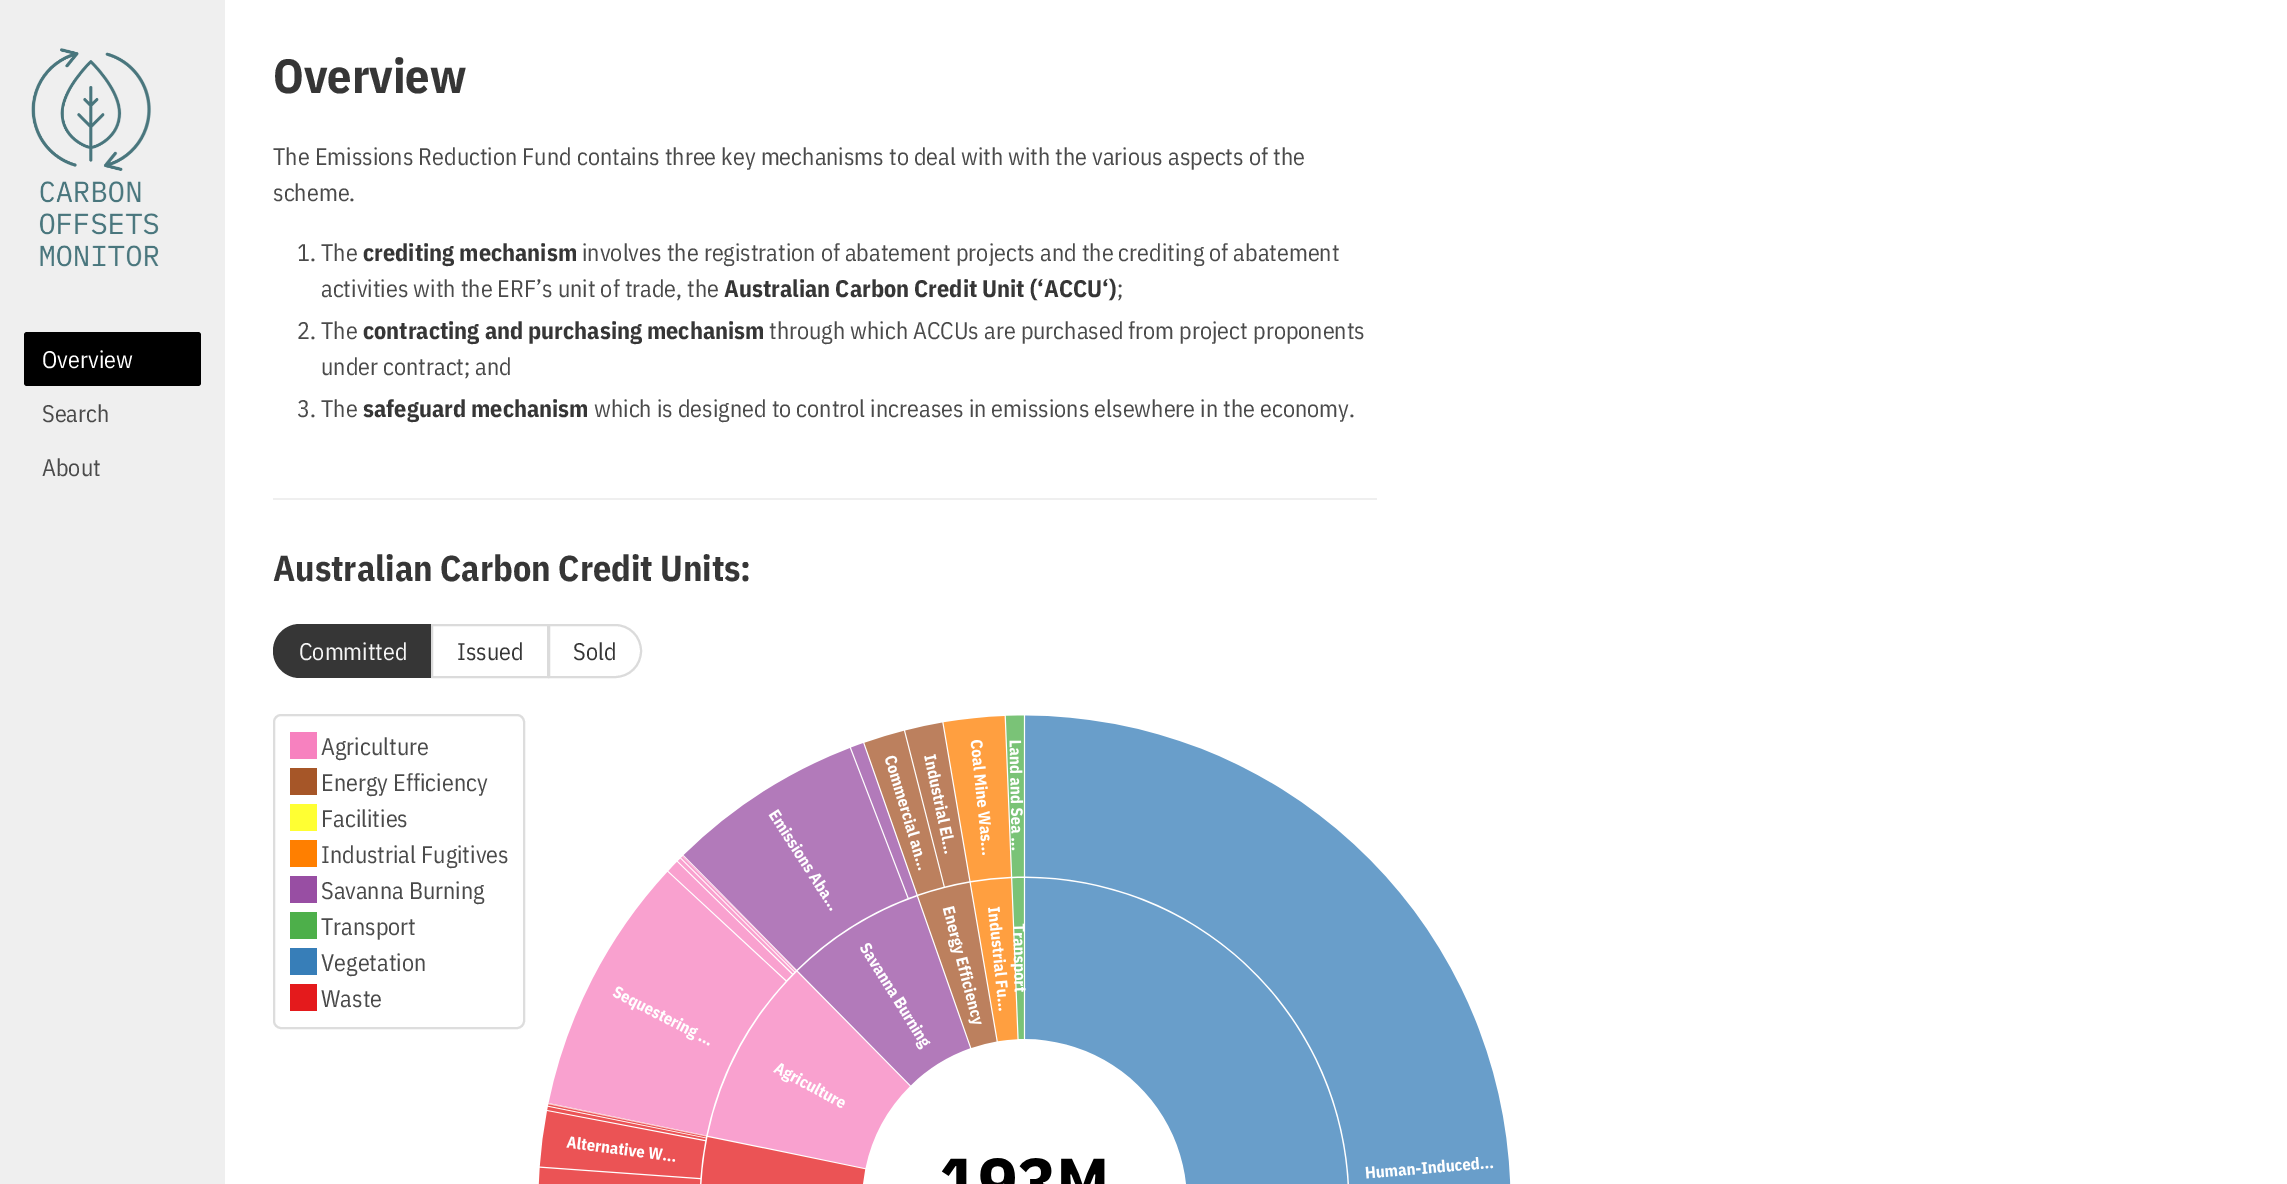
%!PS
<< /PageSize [2287 1184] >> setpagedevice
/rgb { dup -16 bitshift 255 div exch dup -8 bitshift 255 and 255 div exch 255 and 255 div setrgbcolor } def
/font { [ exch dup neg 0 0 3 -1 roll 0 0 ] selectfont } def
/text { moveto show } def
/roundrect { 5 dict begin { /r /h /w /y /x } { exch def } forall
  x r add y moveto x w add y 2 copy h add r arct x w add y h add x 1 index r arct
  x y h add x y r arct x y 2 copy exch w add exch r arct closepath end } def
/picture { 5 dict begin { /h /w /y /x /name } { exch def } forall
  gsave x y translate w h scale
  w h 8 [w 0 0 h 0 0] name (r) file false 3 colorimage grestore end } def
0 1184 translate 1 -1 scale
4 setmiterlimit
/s1 { /IBMPlexSansCondensed-Regular 24 font 16#FFFFFF rgb } def
/s2 { /IBMPlexSansCondensed-Regular 24 font 16#4A4A4A rgb } def
/s3 { /IBMPlexSansCondensed-Bold 48 font 16#363636 rgb } def
/s4 { /IBMPlexSansCondensed-Bold 24 font 16#363636 rgb } def
/s5 { /IBMPlexSansCondensed-Bold 36 font 16#363636 rgb } def
/s6 { /IBMPlexSansCondensed-Regular 24 font 16#F5F5F5 rgb } def
/s7 { /IBMPlexSansCondensed-Regular 24 font 16#363636 rgb } def
16#FFFFFF rgb
0 0 2287 1184 rectfill
16#EFEFEF rgb
0 0 225 1184 rectfill
(pic1.raw) 31 48 128 219 picture
16#000000 rgb
24 332 177 54 3 roundrect fill
s1
(Overview) 42 368 text
s2
(Search) 42 422 text
(About) 42 476 text
s3
(Overview) 273 93 text
16#EFEFEF rgb
273 498 1104 2 rectfill
s2
(The Emissions Reduction Fund contains three key mechanisms to deal with with the various aspects of the) 273 165 text
(scheme.) 273 201 text
(1. The) 297 261 text
s4
(crediting mechanism) 363 261 text
s2
(involves the registration of abatement projects and the crediting of abatement) 582 261 text
(activities with the ERF’s unit of trade, the) 321 297 text
s4
(Australian Carbon Credit Unit \(‘ACCU‘\)) 724 297 text
s2
(;) 1117 297 text
(2. The) 297 339 text
s4
(contracting and purchasing mechanism) 363 339 text
s2
(through which ACCUs are purchased from project proponents) 769 339 text
(under contract; and) 321 375 text
(3. The) 297 417 text
s4
(safeguard mechanism) 363 417 text
s2
(which is designed to control increases in emissions elsewhere in the economy.) 594 417 text
s5
(Australian Carbon Credit Units:) 273 581 text
300 624 moveto 432 624 lineto 432 678 lineto 300 678 lineto 285 678 273 666 273 651 curveto 273 636 285 624 300 624 curveto closepath fill
s6
(Committed) 299 660 text
16#DBDBDB rgb
2 setlinewidth
432 625 116 52 rectstroke
s7
(Issued) 457 660 text
16#FFFFFF rgb
549 625 moveto 615 625 lineto 629.5 625 641 636.5 641 651 curveto 641 665.5 629.5 677 615 677 curveto 549 677 lineto closepath gsave fill grestore
16#DBDBDB rgb
stroke
s7
(Sold) 573 660 text
16#DDDDDD rgb
274 715 250 313 7 roundrect stroke
16#F781BF rgb
290 732 27 27 rectfill
s2
(Agriculture) 321 755 text
16#A65628 rgb
290 768 27 27 rectfill
s2
(Energy Efficiency) 321 791 text
16#FFFF33 rgb
290 804 27 27 rectfill
s2
(Facilities) 321 827 text
16#FF7F00 rgb
290 840 27 27 rectfill
s2
(Industrial Fugitives) 321 863 text
16#984EA3 rgb
290 876 27 27 rectfill
s2
(Savanna Burning) 321 899 text
16#4DAF4A rgb
290 912 27 27 rectfill
s2
(Transport) 321 935 text
16#377EB8 rgb
290 948 27 27 rectfill
s2
(Vegetation) 321 971 text
16#E41A1C rgb
290 984 27 27 rectfill
s2
(Waste) 321 1007 text
(pic2.raw) 538 715 973 469 picture
showpage
